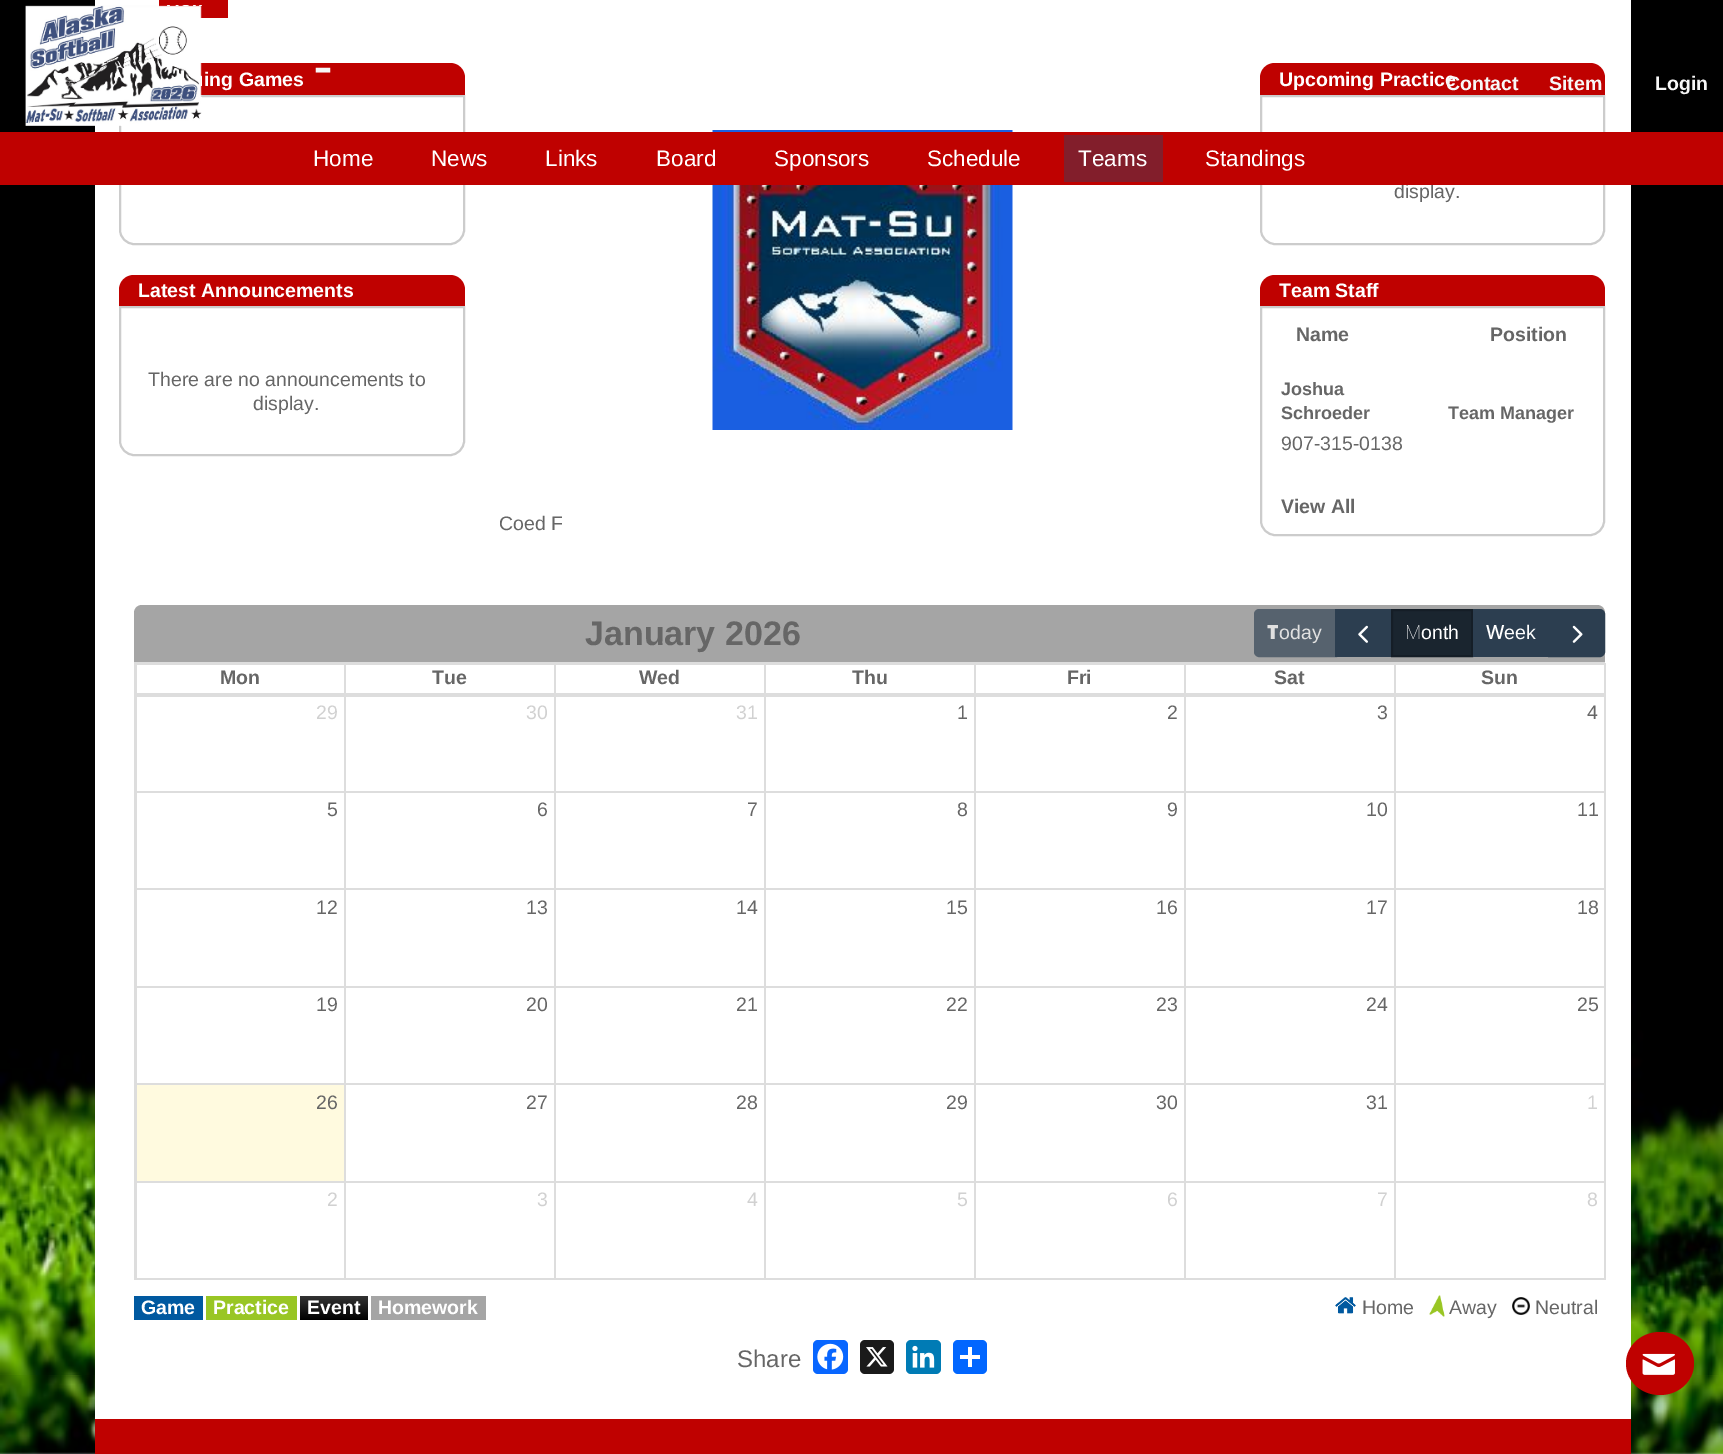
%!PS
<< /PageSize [1723 1454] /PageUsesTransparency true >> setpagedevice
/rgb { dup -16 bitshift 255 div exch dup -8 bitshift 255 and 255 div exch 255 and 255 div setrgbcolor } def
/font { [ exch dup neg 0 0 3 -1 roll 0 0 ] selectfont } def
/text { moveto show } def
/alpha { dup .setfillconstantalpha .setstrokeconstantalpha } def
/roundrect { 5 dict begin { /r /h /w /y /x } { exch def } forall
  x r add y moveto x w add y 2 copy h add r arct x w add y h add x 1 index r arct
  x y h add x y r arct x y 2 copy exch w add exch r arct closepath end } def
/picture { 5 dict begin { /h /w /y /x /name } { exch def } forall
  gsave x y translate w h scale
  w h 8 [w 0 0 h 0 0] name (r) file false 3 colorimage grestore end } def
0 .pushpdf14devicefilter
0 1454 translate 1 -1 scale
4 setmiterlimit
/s1 { /LiberationSans-Regular 60 font 16#F7F7F7 rgb } def
/s2 { /LiberationSans-Bold 19.5 font 16#FFFFFF rgb } def
/s3 { /LiberationSans-Bold 19.5 font 16#F7F7F7 rgb } def
/s4 { /LiberationSans-Regular 19.5 font 16#666666 rgb } def
/s5 { /LiberationSans-Regular 22.5 font 16#FFFFFF rgb } def
/s6 { /LiberationSans-Bold 19.5 font 16#666666 rgb } def
/s7 { /LiberationSans-Bold 18 font 16#666666 rgb } def
/s8 { /LiberationSans-Bold 34 font 16#666666 rgb } def
/s9 { /NotoSans-Black 19.5 font 16#E0E0E0 rgb } def
/s10 { /LiberationSans-Regular 19.5 font 16#E0E0E0 rgb } def
/s11 { /NotoSans-Thin 19.5 font 16#FFFFFF rgb } def
/s12 { /LiberationSans-Regular 19.5 font 16#FFFFFF rgb } def
/s13 { /NotoSans-Medium 19.5 font 16#FFFFFF rgb } def
/s14 { /LiberationSans-Regular 19.5 font 16#D1D1D1 rgb } def
/s15 { /LiberationSans-Regular 24 font 16#666666 rgb } def
16#FFFFFF rgb
0 0 1723 1454 rectfill
(pic2.raw) 0 0 1723 1454 picture
95 0 1536 1419 rectfill
16#BF0100 rgb
159 0 69 18 rectfill
134 63 moveto 450 63 lineto 458.5 63 465 69.5 465 78 curveto 465 95 lineto 119 95 lineto 119 78 lineto 119 69.5 125.5 63 134 63 curveto closepath fill
16#CCCCCC rgb
2 setlinewidth
120 96 moveto 464 96 lineto 464 230 lineto 464 237.5 457.5 244 450 244 curveto 134 244 lineto 126.5 244 120 237.5 120 230 curveto closepath stroke
(pic1.raw) 25 5 177 121 picture
s1
(-) 313 86 text
16#BF0100 rgb
1275 63 moveto 1590 63 lineto 1598.5 63 1605 69.5 1605 78 curveto 1605 95 lineto 1260 95 lineto 1260 78 lineto 1260 69.5 1266.5 63 1275 63 curveto closepath fill
s2
(Upcoming Practice) 1279 86 text
s3
(Contact) 1446 90 text
(Sitem) 1549 90 text
(Login) 1655 90 text
16#CCCCCC rgb
1261 96 moveto 1604 96 lineto 1604 230 lineto 1604 237.5 1597.5 244 1590 244 curveto 1275 244 lineto 1267.5 244 1261 237.5 1261 230 curveto closepath stroke
s4
(display.) 1394 198 text
(pic3.raw) 712 130 301 300 picture
16#BF0100 rgb
0 132 1723 53 rectfill
s5
(Home) 313 166 text
(News) 431 166 text
(Links) 545 166 text
(Board) 656 166 text
(Sponsors) 774 166 text
(Schedule) 927 166 text
16#821E2B rgb
1064 135 99 47 rectfill
s5
(Teams) 1078 166 text
(Standings) 1205 166 text
s2
(ing Games) 204 86 text
16#BF0100 rgb
134 275 moveto 450 275 lineto 458.5 275 465 281.5 465 290 curveto 465 306 lineto 119 306 lineto 119 290 lineto 119 281.5 125.5 275 134 275 curveto closepath fill
s2
(Latest Announcements) 138 297 text
16#CCCCCC rgb
120 307 moveto 464 307 lineto 464 441 lineto 464 448.5 457.5 455 450 455 curveto 134 455 lineto 126.5 455 120 448.5 120 441 curveto closepath stroke
s4
(There are no announcements to) 148 386 text
(display.) 253 410 text
16#BF0100 rgb
1275 275 moveto 1590 275 lineto 1598.5 275 1605 281.5 1605 290 curveto 1605 306 lineto 1260 306 lineto 1260 290 lineto 1260 281.5 1266.5 275 1275 275 curveto closepath fill
s2
(Team Staff) 1279 297 text
16#CCCCCC rgb
1261 307 moveto 1604 307 lineto 1604 521 lineto 1604 528.5 1597.5 535 1590 535 curveto 1275 535 lineto 1267.5 535 1261 528.5 1261 521 curveto closepath stroke
s6
(Name) 1296 341 text
(Position) 1490 341 text
s7
(Joshua) 1281 395 text
(Schroeder) 1281 419 text
(Team Manager) 1448 419 text
s4
(907-315-0138) 1281 450 text
s6
(View All) 1281 513 text
s4
(Coed F) 499 530 text
16#A5A5A5 rgb
142 605 moveto 1597 605 lineto 1601.5 605 1605 608.5 1605 613 curveto 1605 662 lineto 134 662 lineto 134 613 lineto 134 608.5 137.5 605 142 605 curveto closepath fill
s8
(January 2026) 585 645 text
16#56626E rgb
1259 610 moveto 1336 610 lineto 1336 656 lineto 1259 656 lineto 1257 656 1255 654 1255 652 curveto 1255 614 lineto 1255 612 1257 610 1259 610 curveto closepath gsave fill grestore
stroke
s9
(T) 1267 639 text
s10
(oday) 1279 639 text
16#2C3E50 rgb
1335 609 56 48 rectfill
(pic4.raw) 1358 625 10 18 picture
16#1A252F rgb
1392 610 moveto 1472 610 lineto 1472 656 lineto 1392 656 lineto closepath gsave fill grestore
16#151E27 rgb
stroke
s11
(M) 1405 639 text
s12
(onth) 1421 639 text
16#2C3E50 rgb
1473 609 75 48 rectfill
s13
(W) 1486 639 text
s12
(eek) 1504 639 text
16#2C3E50 rgb
1549 610 moveto 1600 610 lineto 1602 610 1604 612 1604 614 curveto 1604 652 lineto 1604 654 1602 656 1600 656 curveto 1549 656 lineto closepath gsave fill grestore
stroke
(pic5.raw) 1572 625 11 18 picture
16#DDDDDD rgb
134 662 1471 1 rectfill
134 662 2 618 rectfill
1604 663 2 617 rectfill
1394 663 210 2 rectfill
1394 693 210 4 rectfill
1394 663 2 32 rectfill
1184 663 211 2 rectfill
1184 693 211 2 rectfill
1184 663 2 32 rectfill
974 663 211 2 rectfill
974 693 211 2 rectfill
974 663 2 32 rectfill
764 663 211 2 rectfill
764 693 211 2 rectfill
764 663 2 32 rectfill
554 663 211 2 rectfill
554 693 211 2 rectfill
554 663 2 32 rectfill
344 663 211 2 rectfill
344 693 211 2 rectfill
344 663 2 32 rectfill
135 663 210 2 rectfill
135 693 210 2 rectfill
136 663 1 32 rectfill
s6
(Mon) 220 684 text
(Tue) 432 684 text
(Wed) 639 684 text
(Thu) 852 684 text
(Fri) 1067 684 text
(Sat) 1274 684 text
(Sun) 1481 684 text
16#DDDDDD rgb
135 1278 1470 2 rectfill
1394 791 210 2 rectfill
1394 888 210 2 rectfill
1394 986 210 2 rectfill
1394 1083 210 2 rectfill
1394 1181 210 2 rectfill
1394 1181 2 97 rectfill
1184 1181 211 2 rectfill
1394 1083 2 99 rectfill
1184 1083 211 2 rectfill
1394 986 2 99 rectfill
1184 986 211 2 rectfill
1394 888 2 99 rectfill
1184 888 211 2 rectfill
1394 791 2 99 rectfill
1184 791 211 2 rectfill
1394 695 2 97 rectfill
1184 695 211 2 rectfill
1184 1181 2 97 rectfill
974 1181 211 2 rectfill
1184 1083 2 99 rectfill
974 1083 211 2 rectfill
1184 986 2 99 rectfill
974 986 211 2 rectfill
1184 888 2 99 rectfill
974 888 211 2 rectfill
1184 791 2 99 rectfill
974 791 211 2 rectfill
1184 695 2 97 rectfill
974 695 211 2 rectfill
974 1181 2 97 rectfill
764 1181 211 2 rectfill
974 1083 2 99 rectfill
764 1083 211 2 rectfill
974 986 2 99 rectfill
764 986 211 2 rectfill
974 888 2 99 rectfill
764 888 211 2 rectfill
974 791 2 99 rectfill
764 791 211 2 rectfill
974 695 2 97 rectfill
764 695 211 2 rectfill
764 1181 2 97 rectfill
554 1181 211 2 rectfill
764 1083 2 99 rectfill
554 1083 211 2 rectfill
764 986 2 99 rectfill
554 986 211 2 rectfill
764 888 2 99 rectfill
554 888 211 2 rectfill
764 791 2 99 rectfill
554 791 211 2 rectfill
764 695 2 97 rectfill
554 695 211 2 rectfill
554 1181 2 97 rectfill
344 1181 211 2 rectfill
554 1083 2 99 rectfill
344 1083 211 2 rectfill
554 986 2 99 rectfill
344 986 211 2 rectfill
554 888 2 99 rectfill
344 888 211 2 rectfill
554 791 2 99 rectfill
344 791 211 2 rectfill
554 695 2 97 rectfill
344 695 211 2 rectfill
344 1181 2 97 rectfill
135 1181 210 2 rectfill
344 1083 2 99 rectfill
135 1083 210 2 rectfill
344 986 2 99 rectfill
135 986 210 2 rectfill
344 888 2 99 rectfill
135 888 210 2 rectfill
344 791 2 99 rectfill
135 791 210 2 rectfill
344 695 2 97 rectfill
135 695 210 2 rectfill
136 1181 1 97 rectfill
136 1083 1 99 rectfill
136 986 1 99 rectfill
136 888 1 99 rectfill
136 791 1 99 rectfill
136 695 1 97 rectfill
s14
(29) 316 719 text
(30) 526 719 text
(31) 736 719 text
s4
(1) 957 719 text
(2) 1167 719 text
(3) 1377 719 text
(4) 1587 719 text
(5) 327 816 text
(6) 537 816 text
(7) 747 816 text
(8) 957 816 text
(9) 1167 816 text
(10) 1366 816 text
(11) 1577 816 text
(12) 316 914 text
(13) 526 914 text
(14) 736 914 text
(15) 946 914 text
(16) 1156 914 text
(17) 1366 914 text
(18) 1577 914 text
(19) 316 1011 text
(20) 526 1011 text
(21) 736 1011 text
(22) 946 1011 text
(23) 1156 1011 text
(24) 1366 1011 text
(25) 1577 1011 text
0.15 alpha
16#FFDC28 rgb
137 1085 207 96 rectfill
1 alpha
s4
(26) 316 1109 text
(27) 526 1109 text
(28) 736 1109 text
(29) 946 1109 text
(30) 1156 1109 text
(31) 1366 1109 text
s14
(1) 1587 1109 text
(2) 327 1206 text
(3) 537 1206 text
(4) 747 1206 text
(5) 957 1206 text
(6) 1167 1206 text
(7) 1377 1206 text
(8) 1587 1206 text
16#0059A0 rgb
134 1296 69 24 rectfill
s2
(Game) 141 1314 text
16#99C624 rgb
206 1296 91 24 rectfill
s2
(Practice) 213 1314 text
gsave 300 1296 moveto 368 1296 lineto 368 1320 lineto 300 1320 lineto closepath clip newpath
<< /ShadingType 2 /ColorSpace /DeviceRGB /Coords [334 1296 334 1320] /Extend [true true] /Function << /FunctionType 2 /Domain [0 1] /C0 [0.2 0.2 0.2] /C1 [0 0 0] /N 1 >> >> shfill grestore
(Event) 307 1314 text
16#A5A5A5 rgb
371 1296 115 24 rectfill
s2
(Homework) 378 1314 text
(pic6.raw) 1335 1297 21 17 picture
s4
(Home) 1362 1314 text
(pic7.raw) 1429 1295 16 22 picture
(Away) 1449 1314 text
(pic8.raw) 1512 1297 18 18 picture
(Neutral) 1535 1314 text
s15
(Share) 737 1367 text
16#0866FF rgb
813 1340 35 34 5 roundrect fill
(pic9.raw) 817 1343 27 27 picture
16#1A1A1A rgb
860 1340 34 34 5 roundrect fill
(pic10.raw) 866 1347 22 20 picture
16#007BB5 rgb
906 1340 35 34 5 roundrect fill
(pic11.raw) 912 1345 23 23 picture
16#0166FF rgb
953 1340 34 34 5 roundrect fill
16#FFFFFF rgb
968 1347 4 20 rectfill
960 1355 20 4 rectfill
16#BF0100 rgb
1660 1332 moveto 1679 1332 1694 1346 1694 1363.5 curveto 1694 1381 1679 1395 1660 1395 curveto 1641 1395 1626 1381 1626 1363.5 curveto 1626 1346 1641 1332 1660 1332 curveto closepath fill
(pic12.raw) 1642 1353 33 22 picture
95 1419 1536 35 rectfill
.poppdf14devicefilter showpage
